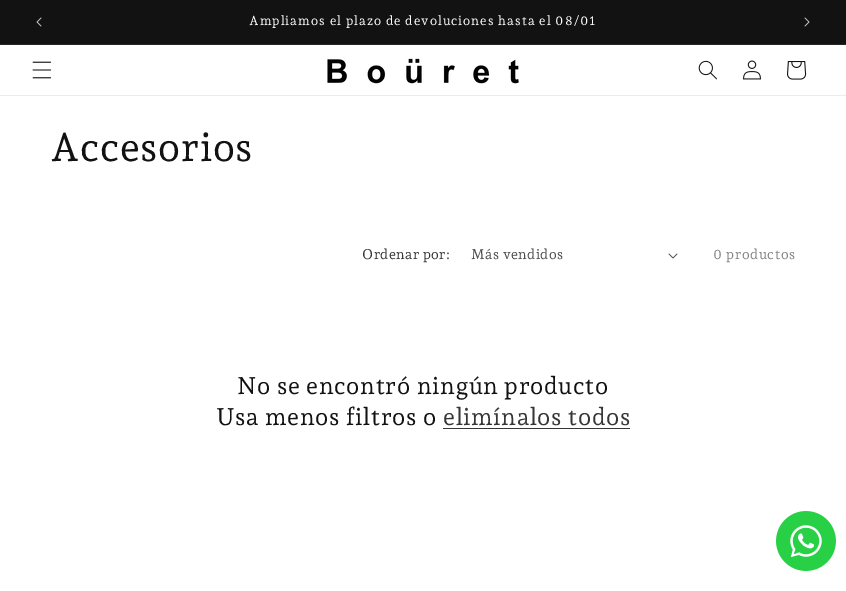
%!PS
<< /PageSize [846 591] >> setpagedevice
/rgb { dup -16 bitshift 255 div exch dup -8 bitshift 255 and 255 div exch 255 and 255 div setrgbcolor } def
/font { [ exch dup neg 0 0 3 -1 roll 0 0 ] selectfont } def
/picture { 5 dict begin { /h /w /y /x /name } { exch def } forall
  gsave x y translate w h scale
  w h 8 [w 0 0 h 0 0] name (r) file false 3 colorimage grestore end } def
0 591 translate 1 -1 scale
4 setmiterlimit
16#FFFFFF rgb
0 0 846 591 rectfill
16#121212 rgb
0 0 846 44 rectfill
16#252525 rgb
0 44 846 1 rectfill
(pic1.raw) 36 17 6 10 picture
/AndadaPro-Regular 13 font
16#FFFFFF rgb
249 25 moveto 1 0 (Ampliamos el plazo de devoluciones hasta el 08/01) ashow
(pic2.raw) 804 17 6 10 picture
16#ECECEC rgb
0 95 846 1 rectfill
(pic3.raw) 32 61 20 18 picture
(pic4.raw) 327 58 192 26 picture
(pic5.raw) 698 60 19 20 picture
(pic6.raw) 743 60 18 20 picture
(pic7.raw) 787 61 20 19 picture
(pic8.raw) 776 511 60 60 picture
/AndadaPro-Regular 40 font
16#121212 rgb
50 161 moveto 0.6 0 (Accesorios) ashow
/AndadaPro-Regular 14 font
16#363636 rgb
362 259 moveto 0.4 0 (Ordenar por:) ashow
16#4D4D4D rgb
471 259 moveto 0.4 0 (Más vendidos) ashow
(pic9.raw) 668 253 10 6 picture
16#838383 rgb
713 259 moveto 0.6 0 (0 productos) ashow
/AndadaPro-Regular 24 font
16#121212 rgb
237 394 moveto 0.6 0 (No se encontró ningún producto) ashow
216 425 moveto 0.6 0 (Usa menos filtros o) ashow
16#363636 rgb
443 425 moveto 0.6 0 (elimínalos todos) ashow
443 428 187 1 rectfill
showpage
